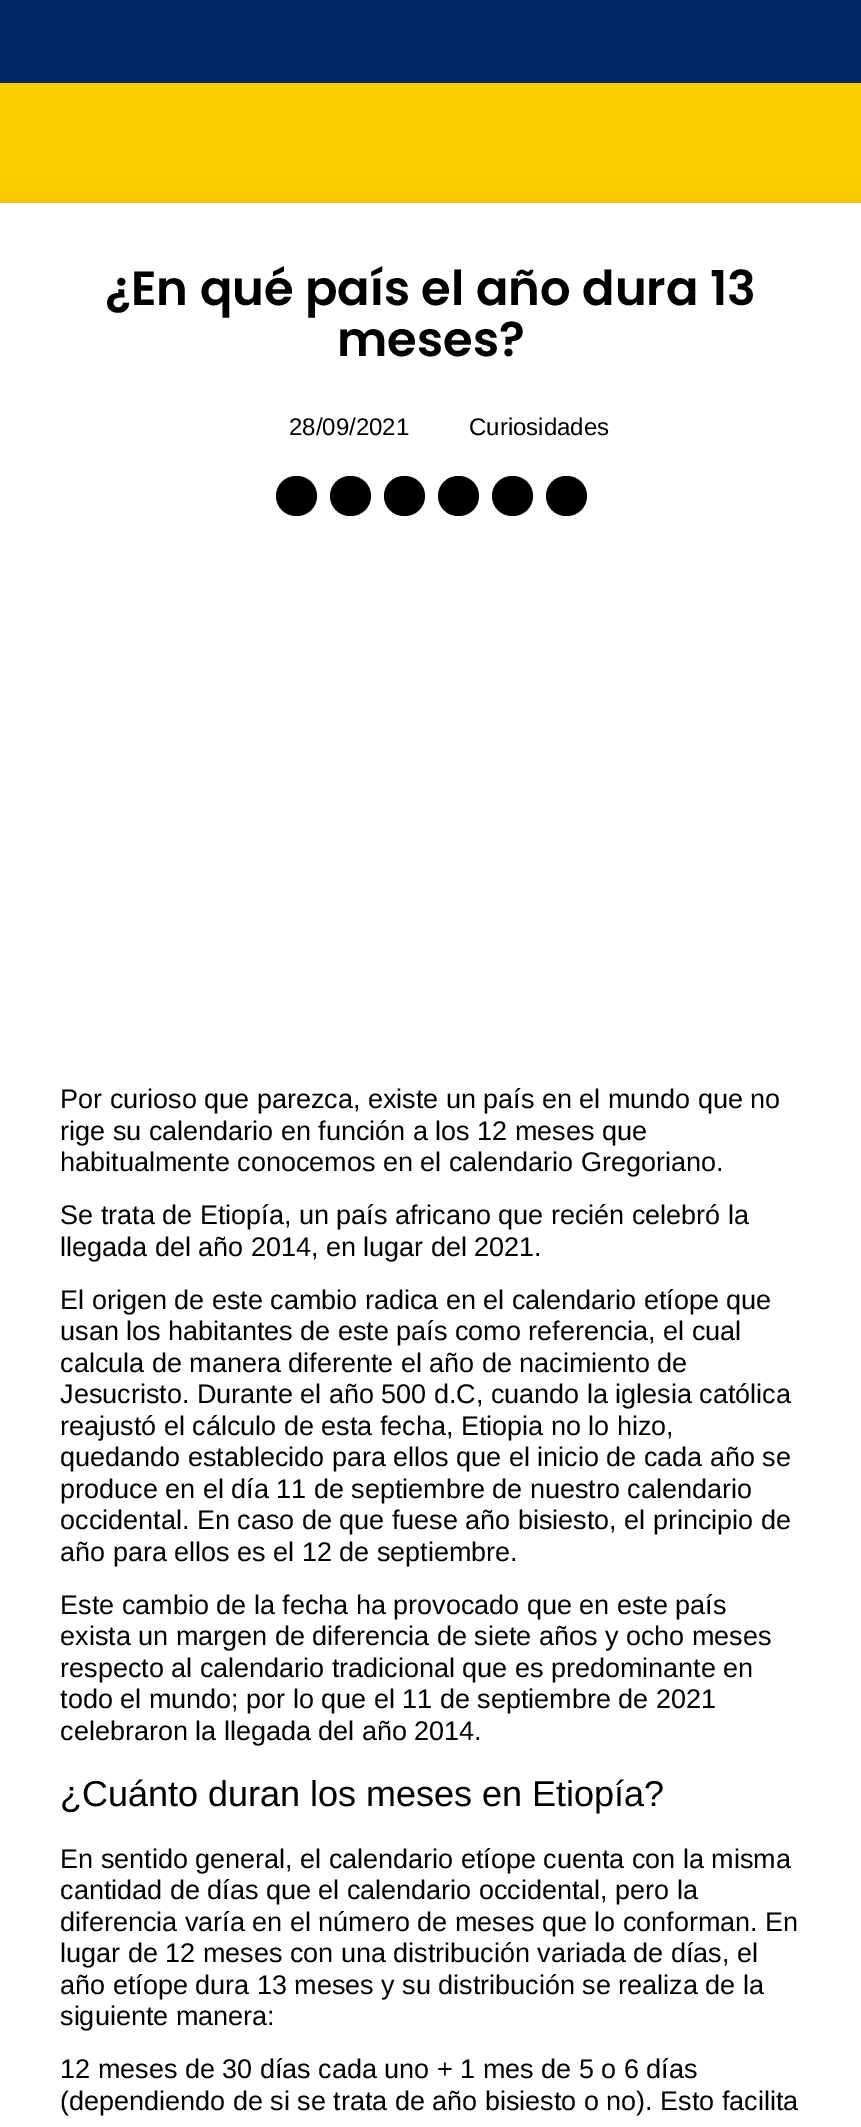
%!PS
<< /PageSize [861 2127] /PageUsesTransparency true >> setpagedevice
/rgb { dup -16 bitshift 255 div exch dup -8 bitshift 255 and 255 div exch 255 and 255 div setrgbcolor } def
/font { [ exch dup neg 0 0 3 -1 roll 0 0 ] selectfont } def
/text { moveto show } def
/alpha { dup .setfillconstantalpha .setstrokeconstantalpha } def
/roundrect { 5 dict begin { /r /h /w /y /x } { exch def } forall
  x r add y moveto x w add y 2 copy h add r arct x w add y h add x 1 index r arct
  x y h add x y r arct x y 2 copy exch w add exch r arct closepath end } def
/shadow { 12 dict begin { /a /b /q /h /w /y /x } { exch def } forall gsave /was 0 def
  9 -2 -9 { dup b mul 4 div /e exch def 1 sub .425 mul 2.718 exch exp 1 add a .99 .min exch div /now exch def
    1 1 now sub 1 was sub div sub alpha /was now def
    w h .min e 2 mul add 0 gt { x e sub y e sub w e 2 mul add h e 2 mul add
      q e add b .6 mul add w h .min 2 div e add .min 0 .max roundrect fill } if } for grestore end } def
0 .pushpdf14devicefilter
0 2127 translate 1 -1 scale
4 setmiterlimit
/s1 { /Poppins-SemiBold 48 font 16#000000 rgb } def
/s2 { /LiberationSans-Regular 24 font 16#000000 rgb } def
/s3 { /LiberationSans-Regular 27 font 16#000000 rgb } def
/s4 { /LiberationSans-Regular 36 font 16#000000 rgb } def
16#022867 rgb
0 0 861 2127 rectfill
16#FFCE00 rgb
0 83 861 120 rectfill
16#000000 rgb
0 203 861 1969 0 15 0.09 shadow
16#FFFFFF rgb
0 203 861 1924 rectfill
s1
(¿En qué país el año dura 13) 105 305 text
(meses?) 337 356 text
s2
(28/09/2021) 289 435 text
(Curiosidades) 469 435 text
276 476 41 40 20 roundrect fill
330 476 41 40 20 roundrect fill
384 476 41 40 20 roundrect fill
438 476 41 40 20 roundrect fill
492 476 41 40 20 roundrect fill
546 476 41 40 20 roundrect fill
s3
(Por curioso que parezca, existe un país en el mundo que no) 60 1108 text
(rige su calendario en función a los 12 meses que) 60 1140 text
(habitualmente conocemos en el calendario Gregoriano.) 60 1171 text
(Se trata de Etiopía, un país africano que recién celebró la) 60 1224 text
(llegada del año 2014, en lugar del 2021.) 60 1256 text
(El origen de este cambio radica en el calendario etíope que) 60 1309 text
(usan los habitantes de este país como referencia, el cual) 60 1340 text
(calcula de manera diferente el año de nacimiento de) 60 1372 text
(Jesucristo. Durante el año 500 d.C, cuando la iglesia católica) 60 1403 text
(reajustó el cálculo de esta fecha, Etiopia no lo hizo,) 60 1435 text
(quedando establecido para ellos que el inicio de cada año se) 60 1466 text
(produce en el día 11 de septiembre de nuestro calendario) 60 1498 text
(occidental. En caso de que fuese año bisiesto, el principio de) 60 1529 text
(año para ellos es el 12 de septiembre.) 60 1561 text
(Este cambio de la fecha ha provocado que en este país) 60 1614 text
(exista un margen de diferencia de siete años y ocho meses) 60 1645 text
(respecto al calendario tradicional que es predominante en) 60 1677 text
(todo el mundo; por lo que el 11 de septiembre de 2021) 60 1708 text
(celebraron la llegada del año 2014.) 60 1740 text
s4
(¿Cuánto duran los meses en Etiopía?) 60 1806 text
s3
(En sentido general, el calendario etíope cuenta con la misma) 60 1868 text
(cantidad de días que el calendario occidental, pero la) 60 1899 text
(diferencia varía en el número de meses que lo conforman. En) 60 1931 text
(lugar de 12 meses con una distribución variada de días, el) 60 1962 text
(año etíope dura 13 meses y su distribución se realiza de la) 60 1994 text
(siguiente manera:) 60 2025 text
(12 meses de 30 días cada uno + 1 mes de 5 o 6 días) 60 2078 text
(\(dependiendo de si se trata de año bisiesto o no\). Esto facilita) 60 2110 text
.poppdf14devicefilter showpage
